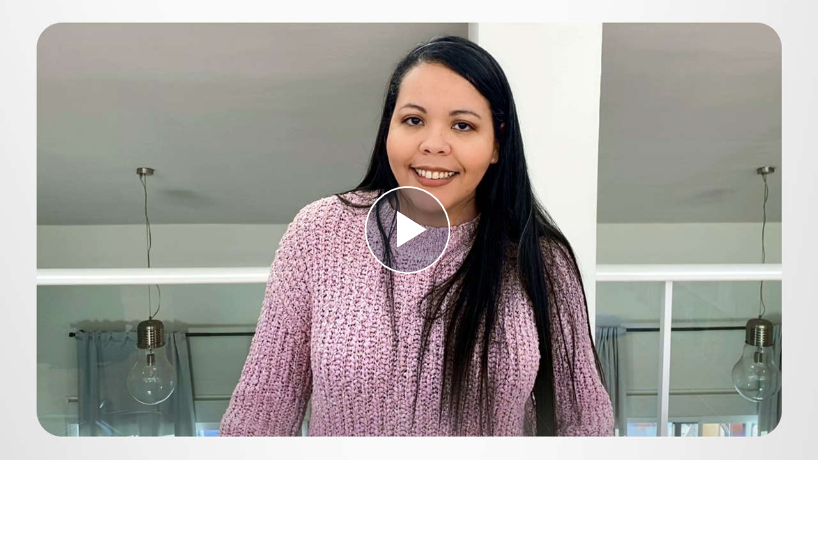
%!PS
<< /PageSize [818 548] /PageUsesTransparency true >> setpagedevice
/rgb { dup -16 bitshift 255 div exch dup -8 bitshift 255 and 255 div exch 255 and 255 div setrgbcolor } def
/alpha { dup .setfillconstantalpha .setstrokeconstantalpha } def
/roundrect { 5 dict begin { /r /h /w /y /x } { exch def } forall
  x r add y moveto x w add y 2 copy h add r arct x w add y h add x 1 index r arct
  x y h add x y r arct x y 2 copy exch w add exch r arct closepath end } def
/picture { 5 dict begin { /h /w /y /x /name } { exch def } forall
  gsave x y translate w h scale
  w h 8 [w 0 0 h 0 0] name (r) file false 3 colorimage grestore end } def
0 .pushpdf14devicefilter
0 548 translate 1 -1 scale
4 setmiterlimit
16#FFFFFF rgb
0 0 818 548 rectfill
(pic1.raw) 0 0 818 460 picture
0.3 alpha
16#18324C rgb
407.5 187 moveto 430.5 187 449.5 206.5 449.5 230 curveto 449.5 253.5 430.5 273 407.5 273 curveto 384.5 273 365.5 253.5 365.5 230 curveto 365.5 206.5 384.5 187 407.5 187 curveto closepath fill
gsave
365 186 85 88 rectclip
365 186 88 88 44 roundrect clip newpath
1 alpha
16#FFFFFF rgb
1.4 setlinewidth
407.5 187 moveto 430.5 187 449.5 206.5 449.5 230 curveto 449.5 253.5 430.5 273 407.5 273 curveto 384.5 273 365.5 253.5 365.5 230 curveto 365.5 206.5 384.5 187 407.5 187 curveto closepath stroke
grestore
1 alpha
16#FFFFFF rgb
426.5 229.5 moveto 397 211 lineto 397 247.5 lineto closepath fill
.poppdf14devicefilter showpage
